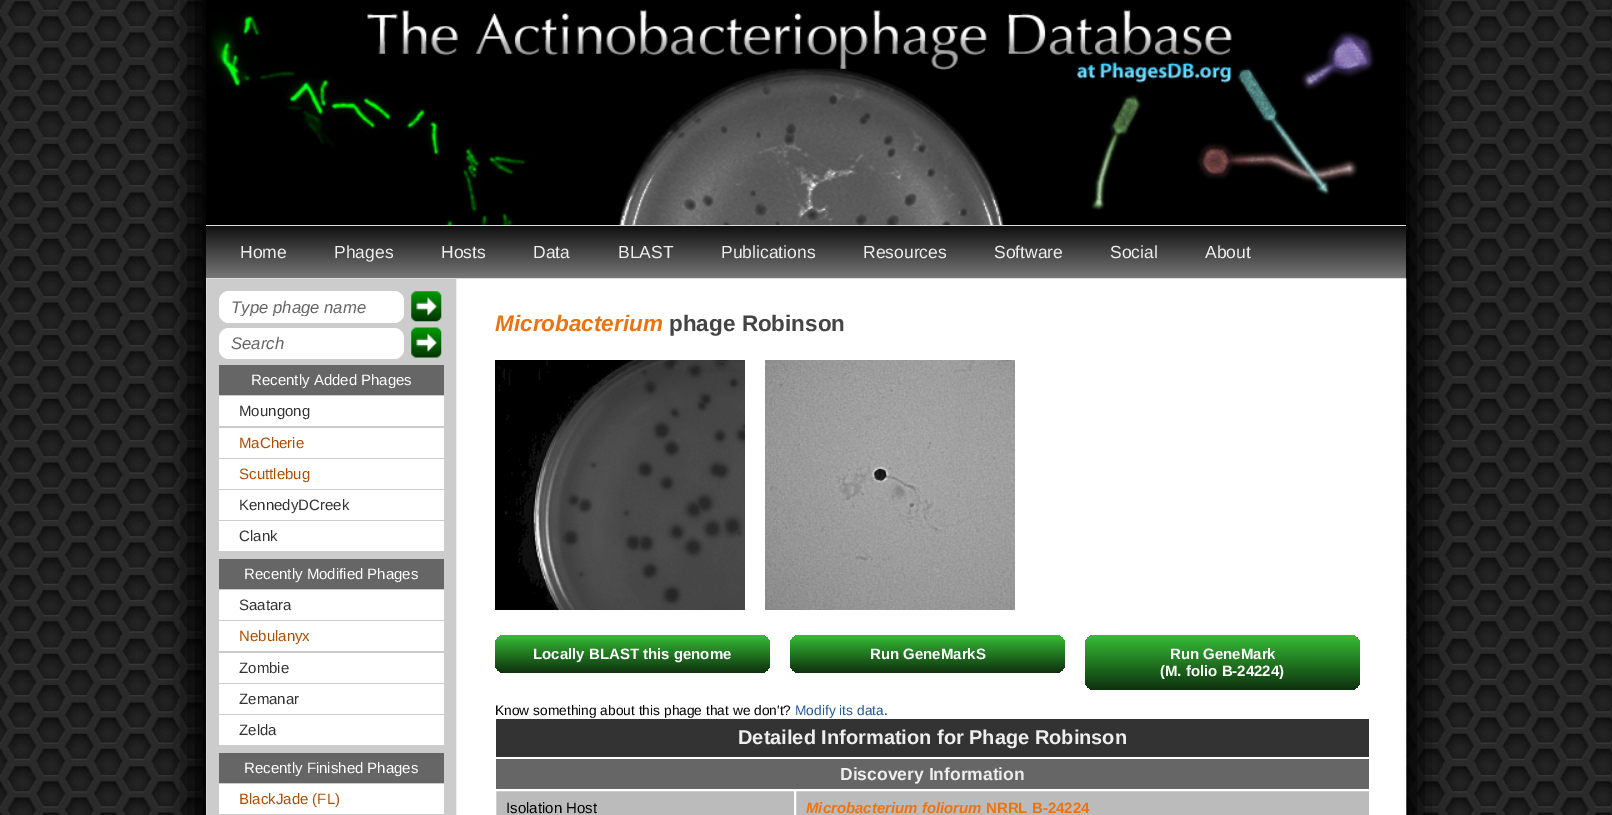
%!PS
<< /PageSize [1612 815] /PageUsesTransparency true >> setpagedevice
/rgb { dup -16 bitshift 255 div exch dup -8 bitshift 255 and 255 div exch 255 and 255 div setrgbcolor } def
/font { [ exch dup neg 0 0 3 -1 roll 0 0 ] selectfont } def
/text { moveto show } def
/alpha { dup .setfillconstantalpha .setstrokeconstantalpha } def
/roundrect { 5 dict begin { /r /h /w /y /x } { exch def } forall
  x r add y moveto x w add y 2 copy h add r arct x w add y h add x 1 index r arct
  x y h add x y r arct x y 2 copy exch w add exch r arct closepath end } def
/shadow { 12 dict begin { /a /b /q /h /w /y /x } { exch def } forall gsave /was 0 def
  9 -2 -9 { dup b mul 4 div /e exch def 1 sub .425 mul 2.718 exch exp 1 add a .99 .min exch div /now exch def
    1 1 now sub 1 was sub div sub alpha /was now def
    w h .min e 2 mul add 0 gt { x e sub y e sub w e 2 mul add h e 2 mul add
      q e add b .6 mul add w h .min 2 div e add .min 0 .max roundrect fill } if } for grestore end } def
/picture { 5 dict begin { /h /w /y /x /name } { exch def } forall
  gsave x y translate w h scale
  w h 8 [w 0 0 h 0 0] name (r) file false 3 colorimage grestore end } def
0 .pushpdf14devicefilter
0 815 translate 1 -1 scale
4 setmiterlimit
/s1 { /LiberationSans-Regular 17.5 font 16#EEEEEE rgb } def
/s2 { /LiberationSans-Italic 16.75 font 16#666666 rgb } def
/s3 { /LiberationSans-Regular 15 font 16#FFFFFF rgb } def
/s4 { /LiberationSans-Regular 15 font 16#333333 rgb } def
/s5 { /LiberationSans-Regular 15 font 16#AD4E04 rgb } def
/s6 { /LiberationSans-BoldItalic 22.5 font 16#EB7410 rgb } def
/s7 { /LiberationSans-Bold 22.5 font 16#444444 rgb } def
/s8 { /LiberationSans-Bold 15 font 16#FFFFFF rgb } def
/s9 { /LiberationSans-Regular 13.75 font 16#000000 rgb } def
/s10 { /LiberationSans-Regular 13.75 font 16#1E5799 rgb } def
/s11 { /LiberationSans-Bold 20 font 16#EEEEEE rgb } def
/s12 { /LiberationSans-Bold 17.5 font 16#EEEEEE rgb } def
/s13 { /LiberationSans-Regular 15 font 16#000000 rgb } def
/s14 { /LiberationSans-BoldItalic 15 font 16#EB7410 rgb } def
/s15 { /LiberationSans-Bold 15 font 16#EB7410 rgb } def
16#FFFFFF rgb
0 0 1612 815 rectfill
(pic1.raw) 0 0 1612 815 picture
16#000000 rgb
191 -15 1230 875 0 15 1 shadow
206 0 3 225 rectfill
(pic2.raw) 209 0 1198 225 picture
gsave 206 226 moveto 1406 226 lineto 1406 278 lineto 206 278 lineto closepath clip newpath
<< /ShadingType 2 /ColorSpace /DeviceRGB /Coords [206 226 206 278] /Extend [true true] /Function << /FunctionType 2 /Domain [0 1] /C0 [0.067 0.067 0.067] /C1 [0.467 0.467 0.467] /N 1 >> >> shfill grestore
16#DDDDDD rgb
206 225 1200 1 rectfill
(pic3.raw) 206 278 1201 537 picture
206 278 1200 1 rectfill
s1
(Home) 240 258 text
(Phages) 334 258 text
(Hosts) 441 258 text
(Data) 533 258 text
(BLAST) 618 258 text
(Publications) 721 258 text
(Resources) 863 258 text
(Software) 994 258 text
(Social) 1110 258 text
(About) 1205 258 text
16#FFFFFF rgb
219 291 185 32 10 roundrect fill
gsave
231 298 160 18 rectclip
s2
(Type phage name) 231 313 text
grestore
(pic4.raw) 411 291 31 31 picture
219 328 185 31 10 roundrect fill
s2
(Search) 231 349 text
(pic5.raw) 411 327 31 31 picture
219 365 225 30 rectfill
s3
(Recently Added Phages) 251 385 text
219 396 225 30 rectfill
s4
(Moungong) 239 416 text
16#FFFFFF rgb
219 428 225 30 rectfill
s5
(MaCherie) 239 448 text
16#FFFFFF rgb
219 459 225 30 rectfill
s5
(Scuttlebug) 239 479 text
16#FFFFFF rgb
219 490 225 30 rectfill
s4
(KennedyDCreek) 239 510 text
16#FFFFFF rgb
219 521 225 30 rectfill
s4
(Clank) 239 541 text
16#666666 rgb
219 559 225 30 rectfill
s3
(Recently Modified Phages) 244 579 text
219 590 225 30 rectfill
s4
(Saatara) 239 610 text
16#FFFFFF rgb
219 621 225 30 rectfill
s5
(Nebulanyx) 239 641 text
16#FFFFFF rgb
219 653 225 30 rectfill
s4
(Zombie) 239 673 text
16#FFFFFF rgb
219 684 225 30 rectfill
s4
(Zemanar) 239 704 text
16#FFFFFF rgb
219 715 225 30 rectfill
s4
(Zelda) 239 735 text
16#666666 rgb
219 753 225 30 rectfill
s3
(Recently Finished Phages) 244 773 text
219 784 225 30 rectfill
s5
(BlackJade \(FL\)) 239 804 text
s6
(Microbacterium) 495 331 text
s7
(phage Robinson) 669 331 text
(pic6.raw) 495 360 250 250 picture
(pic7.raw) 765 360 250 250 picture
gsave 495 635 275 38 10 roundrect clip newpath
<< /ShadingType 2 /ColorSpace /DeviceRGB /Coords [495 635 495 673] /Extend [true true] /Function << /FunctionType 2 /Domain [0 1] /C0 [0.212 0.745 0.212] /C1 [0.055 0.188 0.055] /N 1 >> >> shfill grestore
s8
(Locally BLAST this genome) 533 659 text
gsave 790 635 275 38 10 roundrect clip newpath
<< /ShadingType 2 /ColorSpace /DeviceRGB /Coords [790 635 790 673] /Extend [true true] /Function << /FunctionType 2 /Domain [0 1] /C0 [0.212 0.745 0.212] /C1 [0.055 0.188 0.055] /N 1 >> >> shfill grestore
(Run GeneMarkS) 870 659 text
gsave 1085 635 275 55 10 roundrect clip newpath
<< /ShadingType 2 /ColorSpace /DeviceRGB /Coords [1085 635 1085 690] /Extend [true true] /Function << /FunctionType 2 /Domain [0 1] /C0 [0.212 0.745 0.212] /C1 [0.055 0.188 0.055] /N 1 >> >> shfill grestore
(Run GeneMark) 1170 659 text
(\(M. folio B-24224\)) 1160 676 text
s9
(Know something about this phage that we don't?) 495 715 text
s10
(Modify its data) 795 715 text
s9
(.) 884 715 text
16#333333 rgb
496 719 873 38 rectfill
s11
(Detailed Information for Phage Robinson) 738 744 text
16#666666 rgb
496 759 873 30 rectfill
s12
(Discovery Information) 840 780 text
16#BBBBBB rgb
496 791 873 24 rectfill
16#FFFFFF rgb
495.5 790.5 299 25 rectstroke
s13
(Isolation Host) 506 813 text
16#FFFFFF rgb
795.5 790.5 574 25 rectstroke
s14
(Microbacterium foliorum) 806 813 text
s15
(NRRL B-24224) 986 813 text
.poppdf14devicefilter showpage
